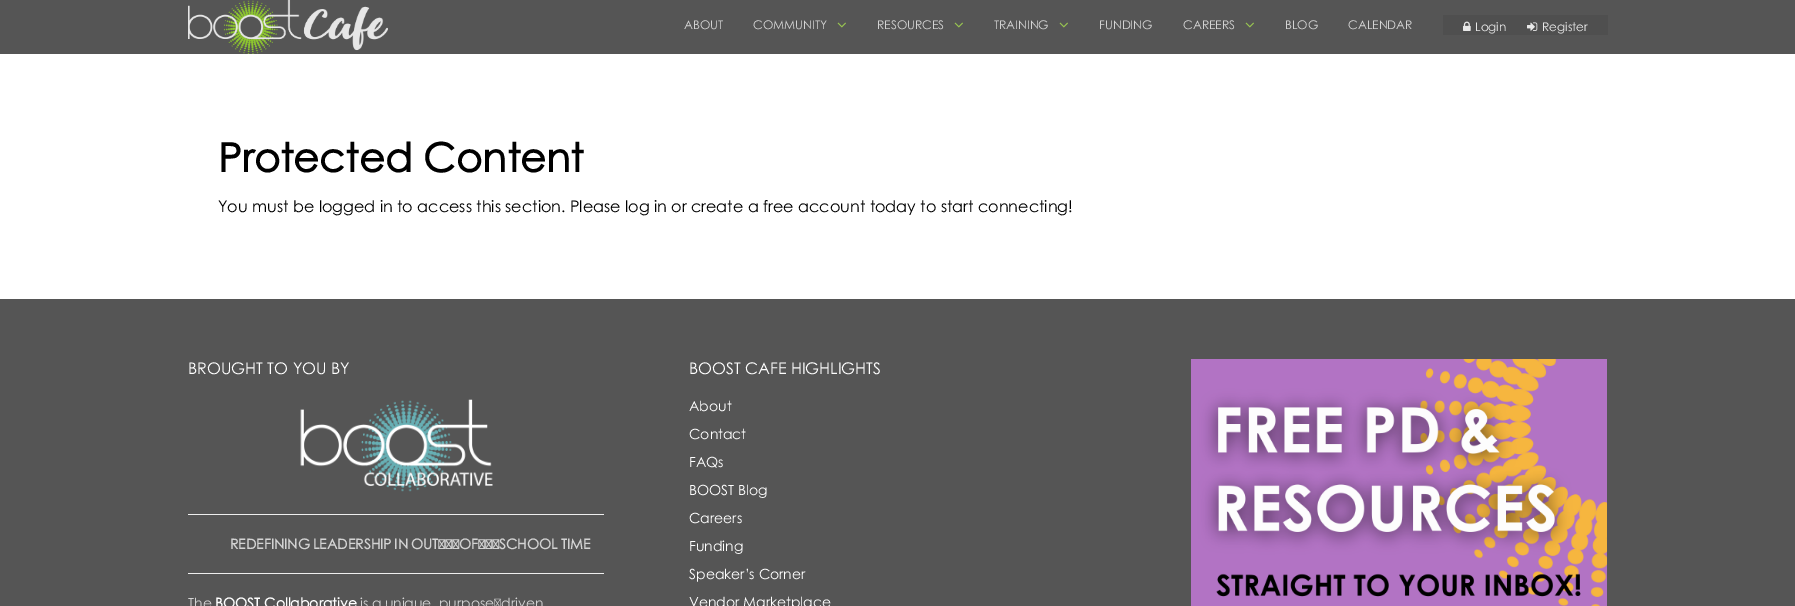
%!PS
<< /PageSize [1795 606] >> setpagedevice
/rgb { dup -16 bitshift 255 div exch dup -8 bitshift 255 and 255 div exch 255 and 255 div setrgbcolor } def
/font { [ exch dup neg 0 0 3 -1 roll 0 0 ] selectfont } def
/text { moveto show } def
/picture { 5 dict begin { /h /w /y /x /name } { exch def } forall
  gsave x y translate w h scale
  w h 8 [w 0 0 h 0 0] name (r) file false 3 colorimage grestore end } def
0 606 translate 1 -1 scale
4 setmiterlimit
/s1 { /CenturyGothic-Regular 12 font 16#D3D3D3 rgb } def
/s2 { /CenturyGothic-Regular 12 font 16#E8E8E8 rgb } def
/s3 { /CenturyGothic-Bold 40 font 16#000000 rgb } def
/s4 { /CenturyGothic-Regular 16 font 16#000000 rgb } def
/s5 { /CenturyGothic-Regular 16 font 16#FFFFFF rgb } def
/s6 { /CenturyGothic-Regular 14 font 16#D3D3D3 rgb } def
/s7 { /CenturyGothic-Bold 14 font 16#FFFFFF rgb } def
/s8 { /CenturyGothic-Regular 14 font 16#FFFFFF rgb } def
16#FFFFFF rgb
0 0 1795 606 rectfill
16#555555 rgb
0 0 1795 54 rectfill
(pic1.raw) 188 0 200 54 picture
s1
(ABOUT) 684 29 text
(COMMUNITY) 753 29 text
(pic2.raw) 837 22 9 6 picture
(RESOURCES) 877 29 text
(pic2.raw) 954 22 9 6 picture
(TRAINING) 994 29 text
(pic2.raw) 1059 22 9 6 picture
(FUNDING) 1099 29 text
(CAREERS) 1183 29 text
(pic2.raw) 1245 22 9 6 picture
(BLOG) 1285 29 text
(CALENDAR) 1348 29 text
16#4F4F4F rgb
1443 15 165 20 rectfill
(pic3.raw) 1463 21 8 10 picture
s2
(Login) 1475 31 text
(pic4.raw) 1527 22 11 9 picture
(Register) 1542 31 text
s3
(Protected Content) 218 172 text
s4
(You must be logged in to access this section. Please log in or create a free account today to start connecting!) 218 212 text
16#555555 rgb
0 299 1795 307 rectfill
s5
(BROUGHT TO YOU BY) 188 374 text
(pic5.raw) 300 399 193 93 picture
16#EEEEEE rgb
188 514 416 1 rectfill
/CenturyGothic-Bold 14 font
16#D3D3D3 rgb
230 549 moveto -1 0 32 (REDEFINING LEADERSHIP IN OUT‑OF‑SCHOOL TIME) widthshow
16#EEEEEE rgb
188 573 416 1 rectfill
s6
(The) 188 608 text
s7
(BOOST Collaborative) 215 608 text
/CenturyGothic-Regular 14 font
16#D3D3D3 rgb
360 608 moveto -0.5 0 32 (is a unique, purpose‑driven) widthshow
s5
(BOOST CAFE HIGHLIGHTS) 689 374 text
s8
(About) 689 411 text
(Contact) 689 439 text
(FAQs) 689 467 text
(BOOST Blog) 689 495 text
(Careers) 689 523 text
(Funding) 689 551 text
(Speaker’s Corner) 689 579 text
(Vendor Marketplace) 689 607 text
(pic6.raw) 1191 359 416 247 picture
showpage
